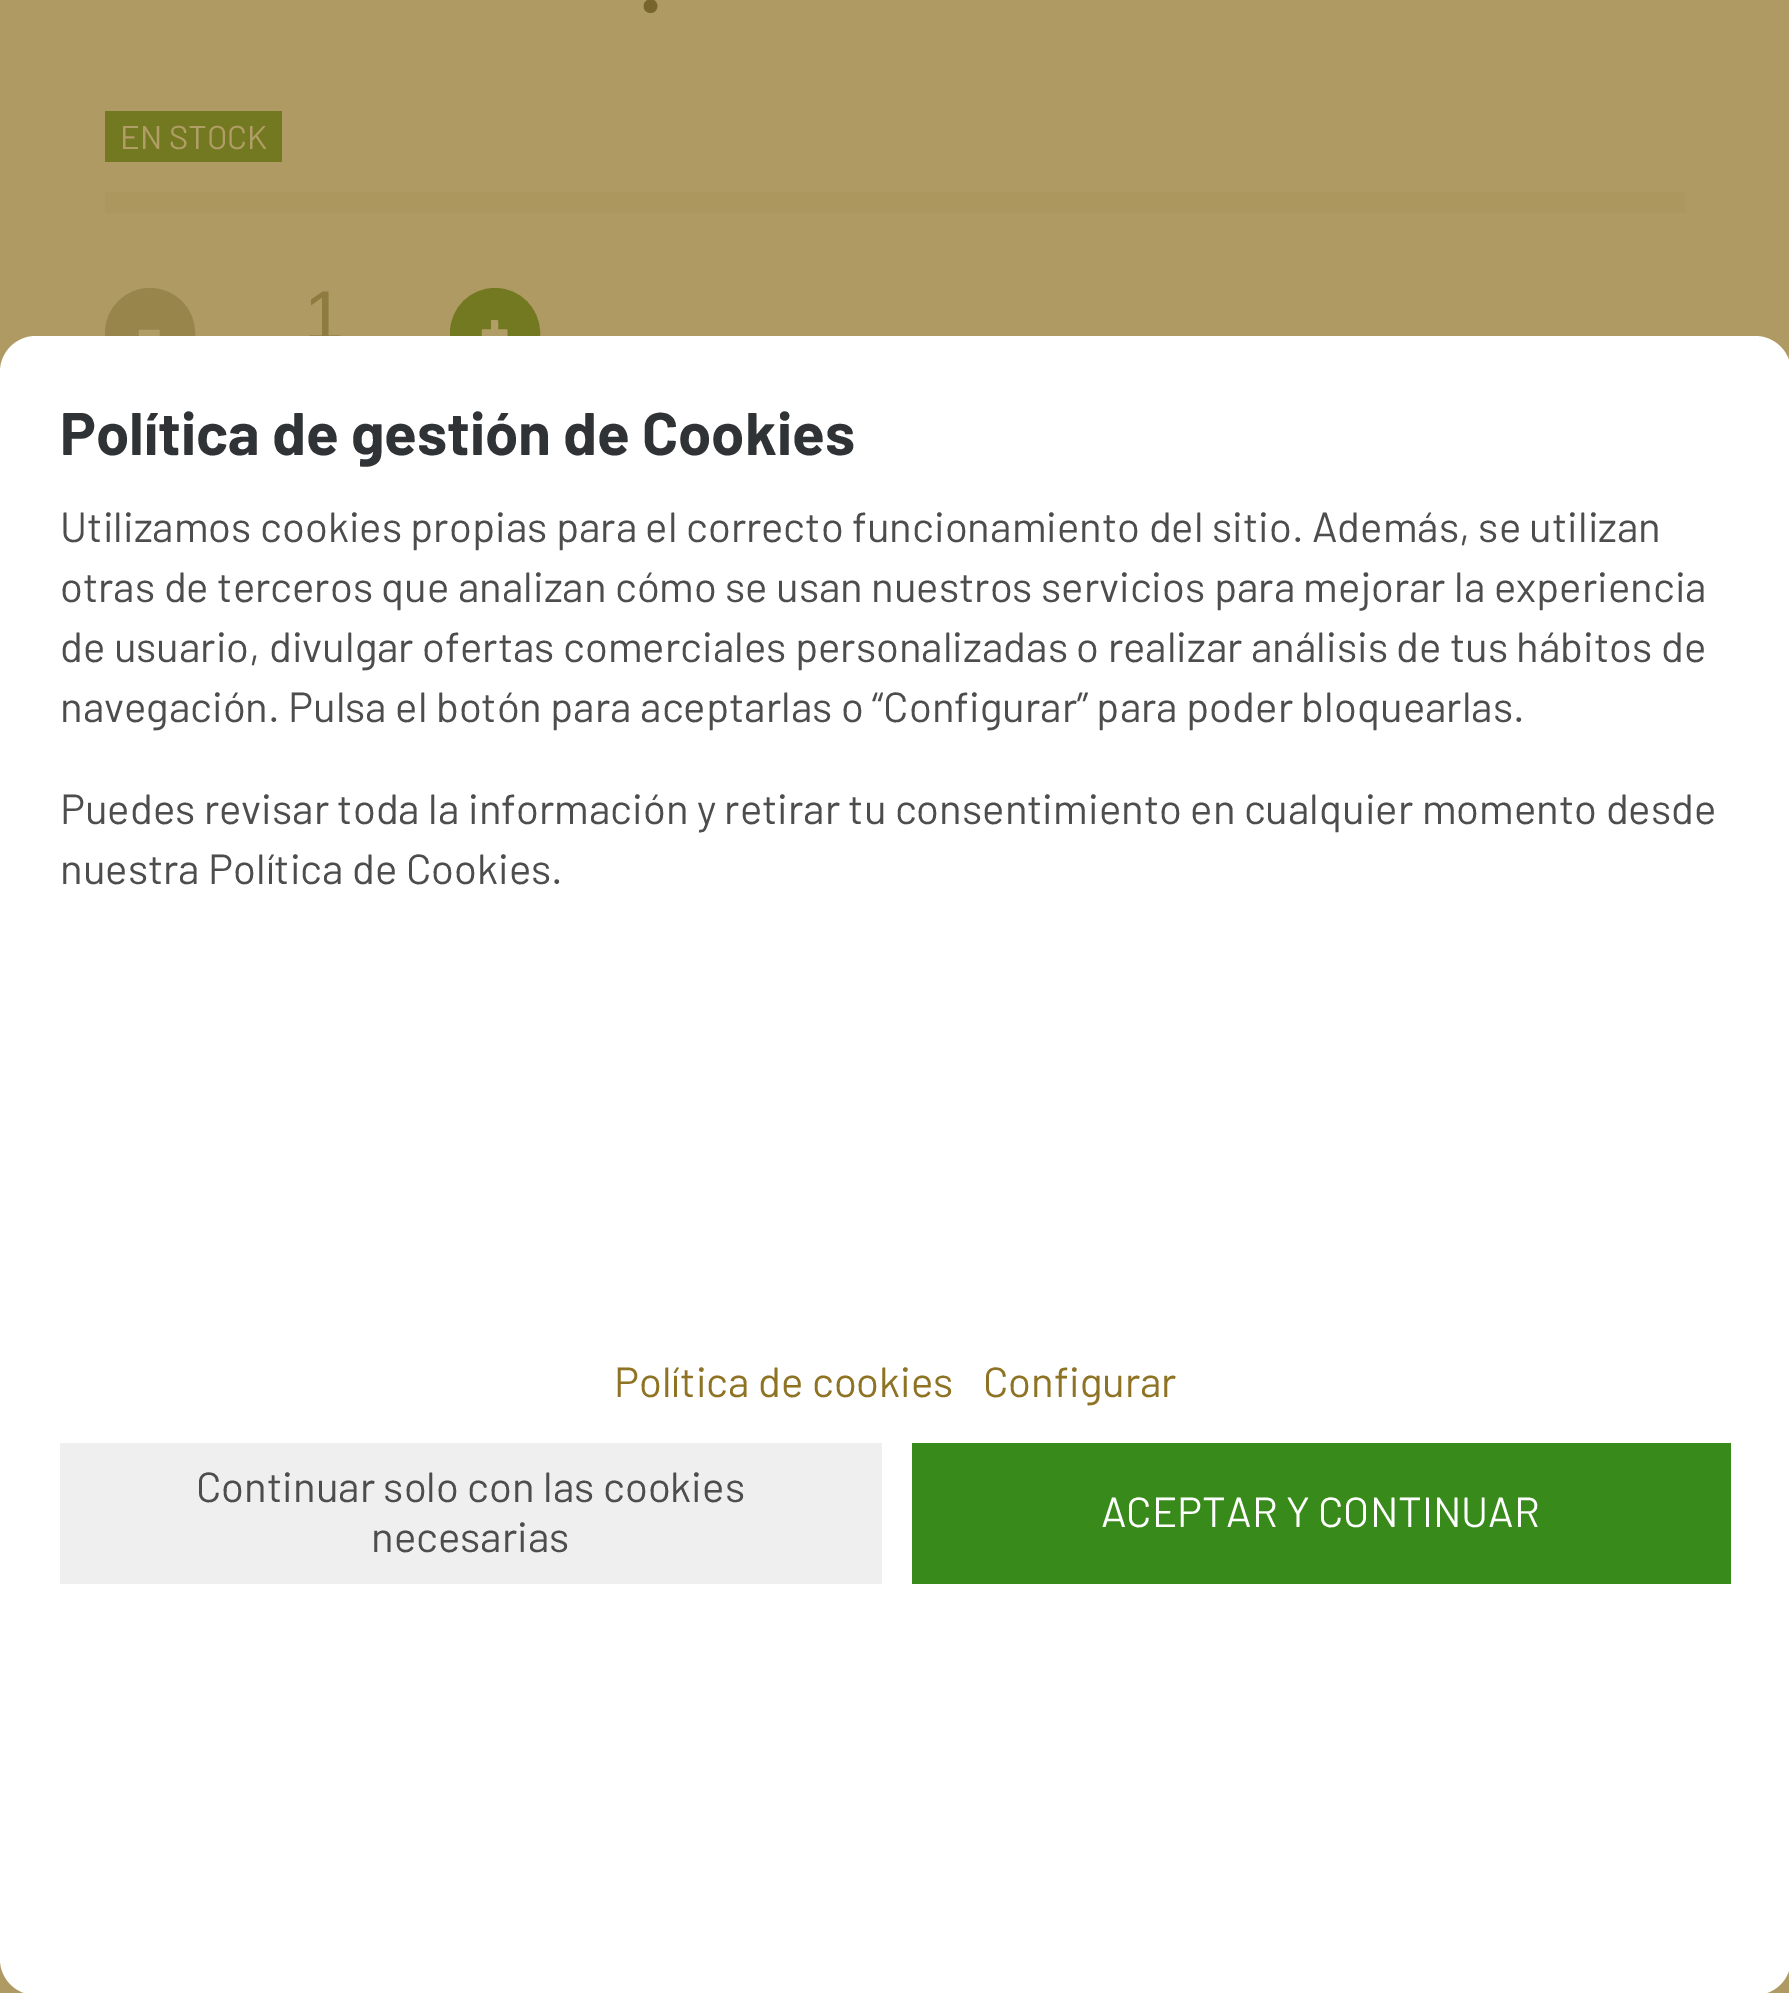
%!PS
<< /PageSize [1789 1993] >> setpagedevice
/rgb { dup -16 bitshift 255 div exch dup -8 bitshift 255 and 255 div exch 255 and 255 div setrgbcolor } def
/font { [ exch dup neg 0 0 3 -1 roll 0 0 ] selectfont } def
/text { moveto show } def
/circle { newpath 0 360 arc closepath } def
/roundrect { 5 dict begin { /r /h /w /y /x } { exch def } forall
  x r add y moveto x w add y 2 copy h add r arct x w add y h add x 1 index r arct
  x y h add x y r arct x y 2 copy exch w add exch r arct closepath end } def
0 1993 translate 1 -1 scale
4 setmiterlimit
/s1 { /Barlow-Medium 108 font 16#78642D rgb } def
/s2 { /Barlow-Regular 33 font 16#B19D66 rgb } def
/s3 { /Barlow-Bold 60 font 16#B19D66 rgb } def
/s4 { /LiberationSans-Regular 72 font 16#8D7B40 rgb } def
/s5 { /Barlow-Bold 60 font 16#303335 rgb } def
/s6 { /Barlow-Regular 42 font 16#4D4D4D rgb } def
/s7 { /Barlow-Regular 42 font 16#8F7324 rgb } def
/s8 { /Barlow-Regular 42 font 16#FFFFFF rgb } def
16#AE9A62 rgb
0 0 1789 1993 rectfill
s1
(.) 636 13 text
16#737921 rgb
105 111 177 51 rectfill
s2
(EN STOCK) 120 149 text
16#AC985E rgb
105 192 1581 21 rectfill
16#98854B rgb
150 333 43.5 circle gsave fill grestore
3 setlinewidth
stroke
s3
(-) 137 351 text
s4
(1) 304 341 text
16#737921 rgb
495 333 43.5 circle gsave fill grestore
stroke
s3
(+) 480 351 text
16#FFFFFF rgb
0 336 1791 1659 36 roundrect fill
s5
(Política de gestión de Cookies) 60 455 text
s6
(Utilizamos cookies propias para el correcto funcionamiento del sitio. Además, se utilizan) 60 542 text
(otras de terceros que analizan cómo se usan nuestros servicios para mejorar la experiencia) 60 602 text
(de usuario, divulgar ofertas comerciales personalizadas o realizar análisis de tus hábitos de) 60 662 text
(navegación. Pulsa el botón para aceptarlas o “Configurar” para poder bloquearlas.) 60 722 text
(Puedes revisar toda la información y retirar tu consentimiento en cualquier momento desde) 60 824 text
(nuestra Política de Cookies.) 60 884 text
s7
(Política de cookies) 614 1397 text
(Configurar) 983 1397 text
16#EFEFEF rgb
60 1443 822 141 rectfill
s6
(Continuar solo con las cookies) 196 1502 text
(necesarias) 371 1552 text
16#388B1A rgb
912 1443 819 141 rectfill
s8
(ACEPTAR Y CONTINUAR) 1101 1527 text
showpage
